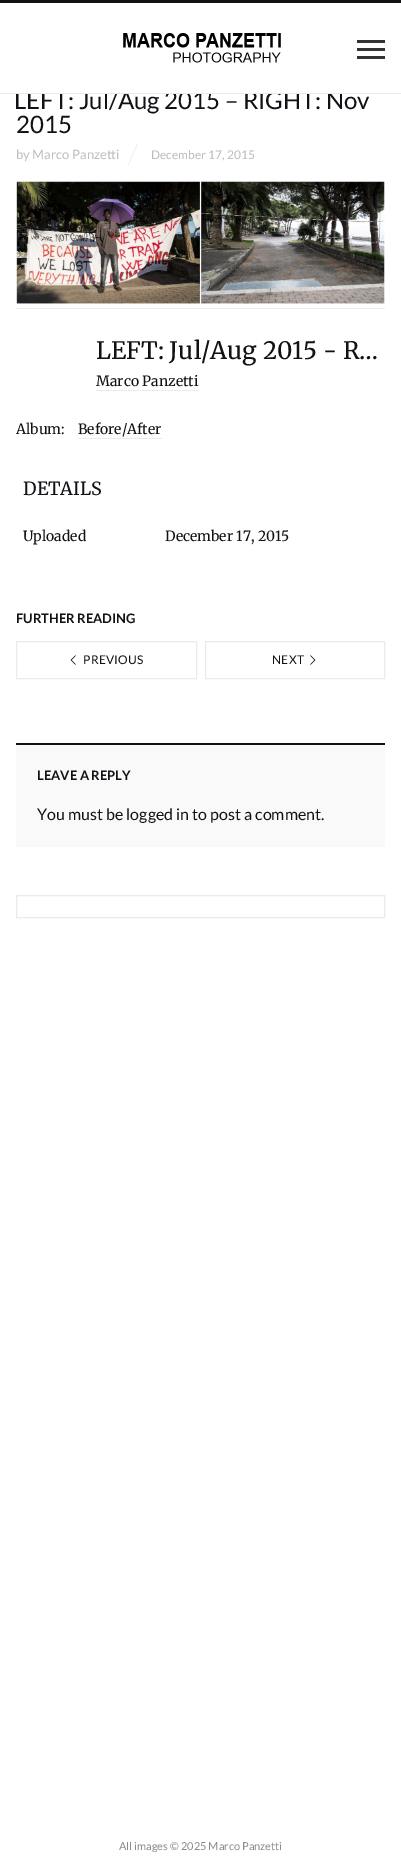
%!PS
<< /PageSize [401 1874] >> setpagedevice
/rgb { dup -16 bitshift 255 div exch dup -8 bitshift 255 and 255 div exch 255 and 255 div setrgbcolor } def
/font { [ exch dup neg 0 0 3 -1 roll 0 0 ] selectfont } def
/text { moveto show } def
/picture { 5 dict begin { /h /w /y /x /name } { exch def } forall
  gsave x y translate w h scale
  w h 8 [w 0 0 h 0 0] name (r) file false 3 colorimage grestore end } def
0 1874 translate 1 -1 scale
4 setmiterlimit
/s1 { /Lato-Regular 24 font 16#111116 rgb } def
/s2 { /Lato-Regular 13 font 16#BDBDBD rgb } def
/s3 { /Lato-Regular 12 font 16#BDBDBD rgb } def
/s4 { /Merriweather-Light 24 font 16#111116 rgb } def
/s5 { /Merriweather-Light 14 font 16#111116 rgb } def
/s6 { /Merriweather-Light 18 font 16#111116 rgb } def
/s7 { /Lato-Bold 13 font 16#111116 rgb } def
/s8 { /Lato-Regular 16 font 16#111116 rgb } def
/s9 { /Lato-Regular 11 font 16#8A8A8A rgb } def
16#FFFFFF rgb
0 0 401 1874 rectfill
s1
(LEFT: Jul/Aug 2015 – RIGHT: Nov) 14 109 text
16#EAEAEA rgb
0 93 401 1 rectfill
16#FFFFFF rgb
16 91 327 2 rectfill
16#111116 rgb
0 0 401 3 rectfill
(pic1.raw) 123 33 158 30 picture
16#333333 rgb
357 48 28 3 rectfill
357 40 28 3 rectfill
357 56 28 3 rectfill
s1
(2015) 16 133 text
s2
(by Marco Panzetti) 16 159 text
(pic2.raw) 128 144 10 21 picture
s3
(December 17, 2015) 151 159 text
(pic3.raw) 16 181 369 123 picture
16#EBEBEB rgb
16 308 369 1 rectfill
s4
(LEFT: Jul/Aug 2015 - R…) 96 359 text
s5
(Marco Panzetti) 96 386 text
16#EBEBEB rgb
96 390 102 1 rectfill
s5
(Album:) 16 434 text
(Before/After) 78 434 text
16#EBEBEB rgb
78 438 84 1 rectfill
s6
(DETAILS) 23 495 text
s5
(Uploaded) 23 541 text
(December 17, 2015) 165 541 text
s7
(FURTHER READING) 16 623 text
16#EBEBEB rgb
16.5 641.5 180 37 rectstroke
(pic4.raw) 70 655 6 10 picture
/Lato-Regular 12 font
16#111116 rgb
83 664 moveto 0.25 0 (PREVIOUS) ashow
16#EBEBEB rgb
205.5 641.5 179 37 rectstroke
16#111116 rgb
272 664 moveto 0.25 0 (NEXT) ashow
(pic5.raw) 310 655 6 10 picture
16#F9F9F9 rgb
16 745 369 102 rectfill
16#111116 rgb
16 743 369 2 rectfill
s7
(LEAVE A REPLY) 37 780 text
s8
(You must be logged in to post a comment.) 37 820 text
16#EBEBEB rgb
16.5 895.5 368 22 rectstroke
s9
(All images © 2025 Marco Panzetti) 119 1850 text
showpage
